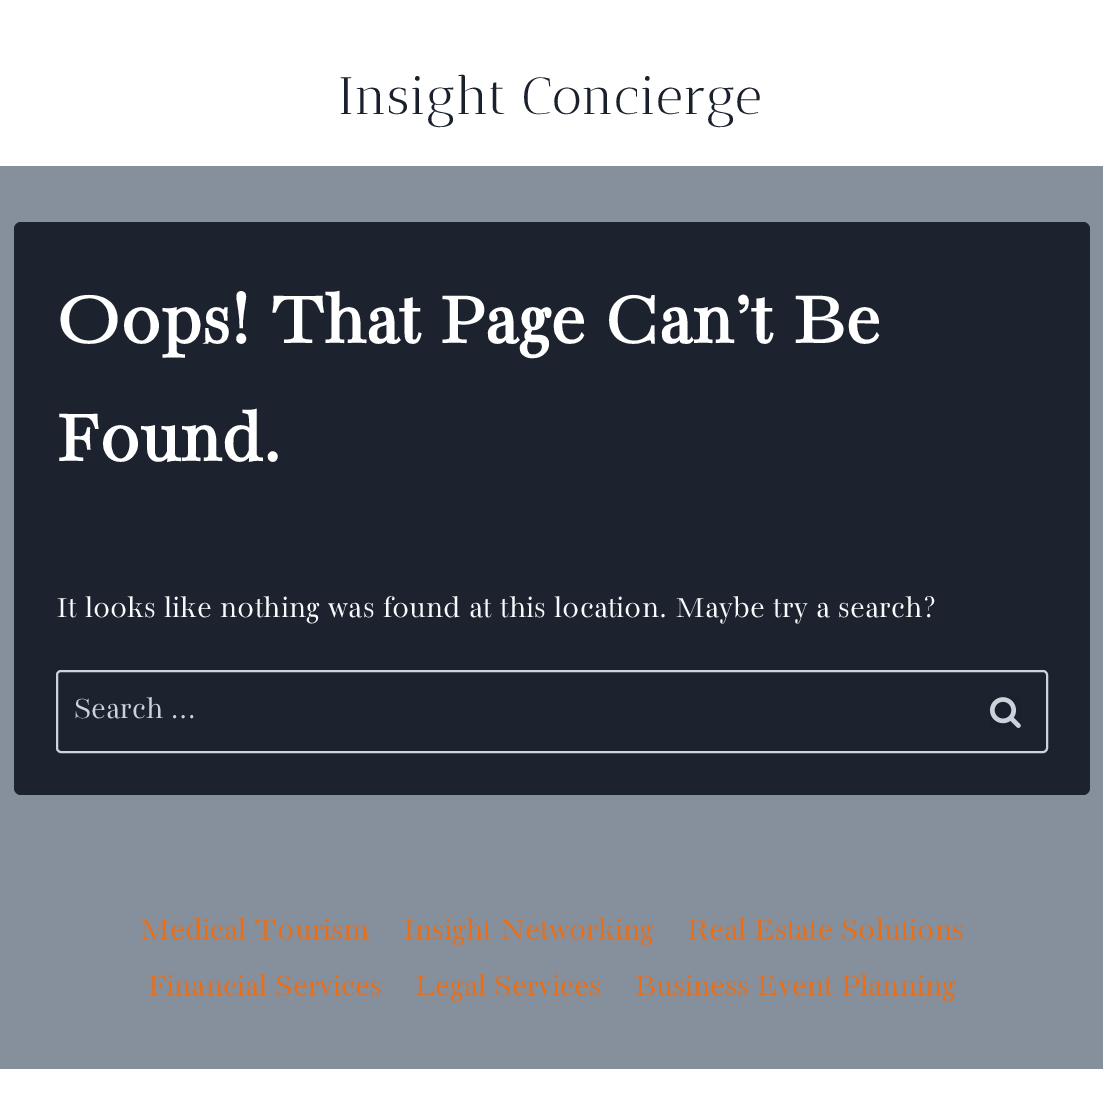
%!PS
<< /PageSize [1103 1105] >> setpagedevice
/rgb { dup -16 bitshift 255 div exch dup -8 bitshift 255 and 255 div exch 255 and 255 div setrgbcolor } def
/font { [ exch dup neg 0 0 3 -1 roll 0 0 ] selectfont } def
/text { moveto show } def
/roundrect { 5 dict begin { /r /h /w /y /x } { exch def } forall
  x r add y moveto x w add y 2 copy h add r arct x w add y h add x 1 index r arct
  x y h add x y r arct x y 2 copy exch w add exch r arct closepath end } def
/picture { 5 dict begin { /h /w /y /x /name } { exch def } forall
  gsave x y translate w h scale
  w h 8 [w 0 0 h 0 0] name (r) file false 3 colorimage grestore end } def
0 1105 translate 1 -1 scale
4 setmiterlimit
/s1 { /AnticDidone-Regular 52.5 font 16#1A202C rgb } def
/s2 { /BacasimeAntique-Bold 78.75 font 16#FFFFFF rgb } def
/s3 { /BacasimeAntique-Regular 33.25 font 16#F7FAFC rgb } def
/s4 { /BacasimeAntique-Regular 33.25 font 16#CBD2D9 rgb } def
/s5 { /BacasimeAntique-Regular 33.25 font 16#ED6D12 rgb } def
16#868F9C rgb
0 0 1103 1105 rectfill
16#FFFFFF rgb
0 0 1103 166 rectfill
s1
(Insight Concierge) 338 114 text
16#1C222E rgb
14 222 1076 573 7 roundrect fill
s2
(Oops! That Page Can’t Be) 56 343 text
(Found.) 56 461 text
s3
(It looks like nothing was found at this location. Maybe try a search?) 56 617 text
16#CBD5E0 rgb
2 setlinewidth
57 671 990 81 4 roundrect stroke
s4
(Search …) 74 718 text
(pic1.raw) 989 697 32 31 picture
s5
(Medical Tourism) 140 939 text
(Insight Networking) 403 939 text
(Real Estate Solutions) 687 939 text
(Financial Services) 148 995 text
(Legal Services) 415 995 text
(Business Event Planning) 634 995 text
16#FFFFFF rgb
0 1069 1103 36 rectfill
showpage
